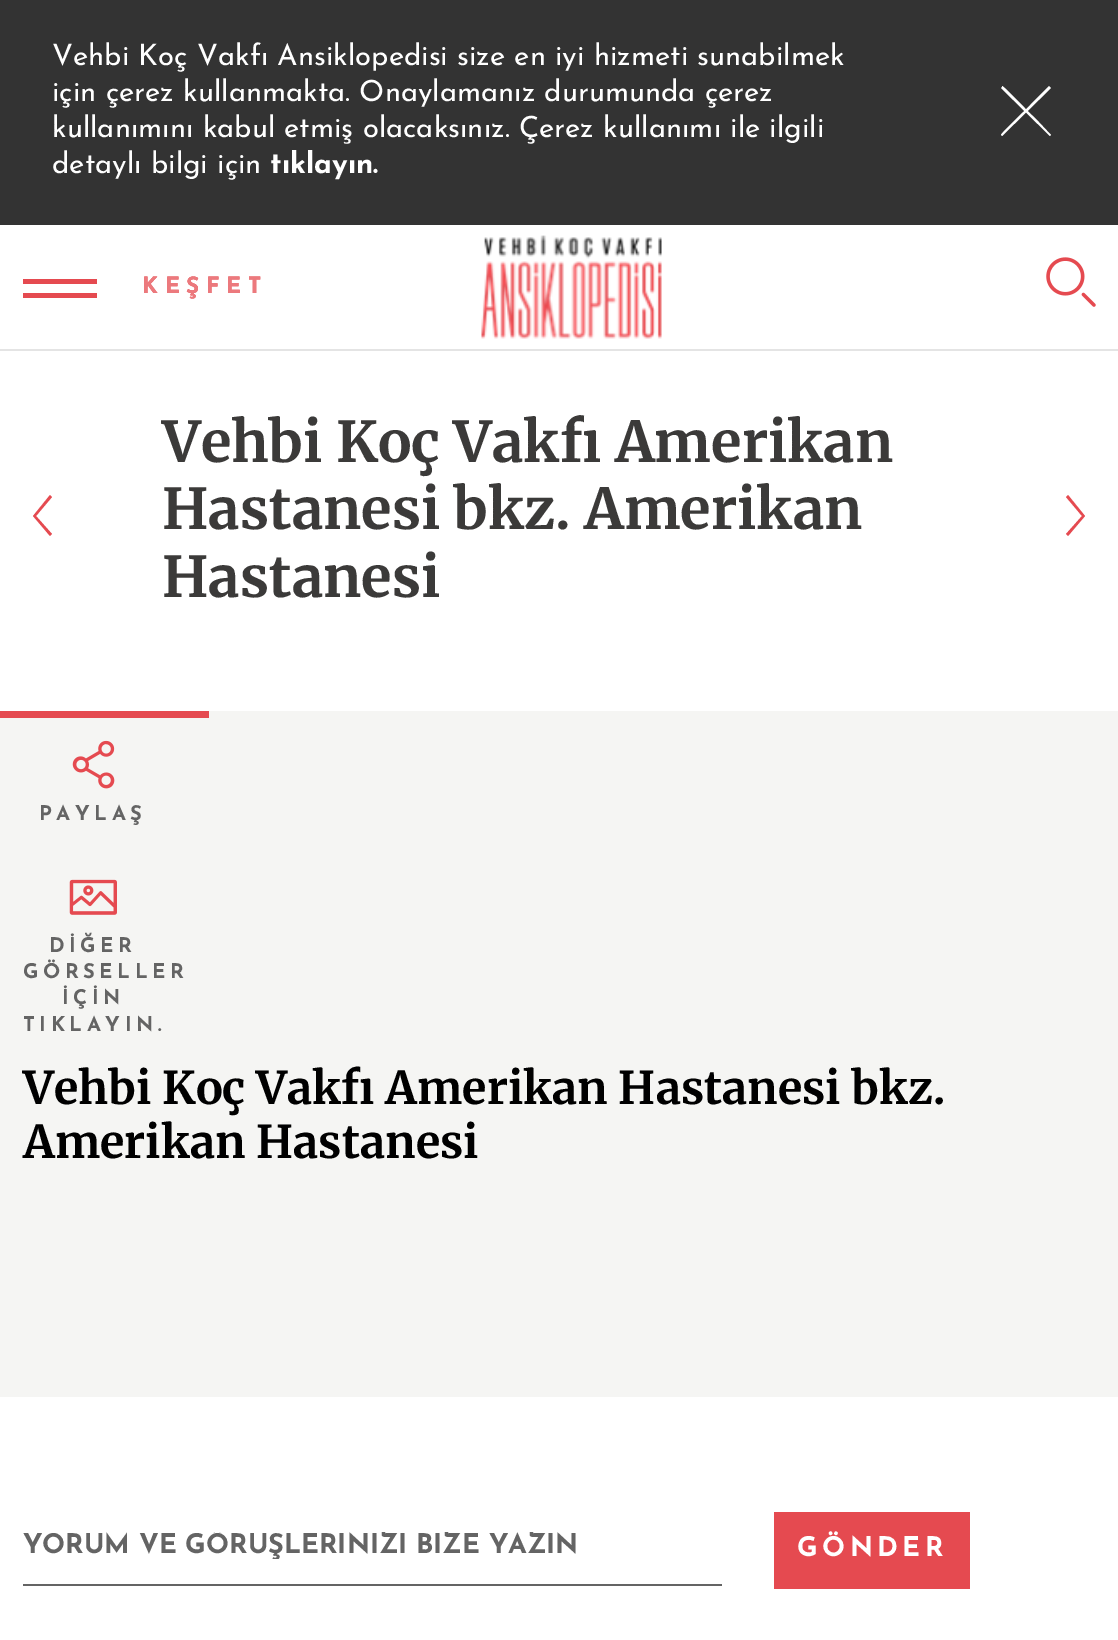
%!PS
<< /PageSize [1118 1640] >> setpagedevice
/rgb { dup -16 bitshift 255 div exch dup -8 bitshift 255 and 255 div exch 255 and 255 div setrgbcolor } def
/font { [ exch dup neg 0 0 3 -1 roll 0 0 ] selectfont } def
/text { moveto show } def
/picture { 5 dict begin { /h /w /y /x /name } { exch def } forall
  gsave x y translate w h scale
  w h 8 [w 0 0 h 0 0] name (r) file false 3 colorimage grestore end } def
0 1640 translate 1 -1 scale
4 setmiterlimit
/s1 { /JosefinSans-Regular 29.25 font 16#FFFFFF rgb } def
/s2 { /JosefinSans-Bold 29.25 font 16#FFFFFF rgb } def
/s3 { /Merriweather-Bold 56.25 font 16#3B3A39 rgb } def
/s4 { /Merriweather-Bold 45 font 16#000000 rgb } def
/s5 { /JosefinSans-Bold 27 font 16#646464 rgb } def
16#F5F5F3 rgb
0 0 1118 1640 rectfill
16#FFFFFF rgb
0 225 1118 124 rectfill
16#E4E4E4 rgb
0 349 1118 2 rectfill
16#333333 rgb
0 0 1118 225 rectfill
s1
(Vehbi Koç Vakfı Ansiklopedisi size en iyi hizmeti sunabilmek) 52 65 text
(için çerez kullanmakta. Onaylamanız durumunda çerez) 52 101 text
(kullanımını kabul etmiş olacaksınız. Çerez kullanımı ile ilgili) 52 137 text
(detaylı bilgi için) 52 173 text
s2
(tıklayın.) 270 173 text
1050 136 moveto 1001 88 lineto 1002 87 lineto 1002 86 lineto 1004 86 1031 115 1035 118 curveto 1051 135 lineto closepath 1002 136 moveto 1001 135 lineto 1001 133 1030 106 1033 102 curveto 1049 86 lineto 1050 87 lineto 1051 88 lineto closepath fill
16#E54A50 rgb
23 279 74 5 rectfill
23 293 74 5 rectfill
/JosefinSans-Bold 22.5 font
142 293 moveto 6.75 0 (KEŞFET) ashow
(pic1.raw) 481 235 181 104 picture
(pic2.raw) 1046 257 50 50 picture
16#EC797D rgb
142 293 moveto 6.75 0 (KEŞFET) ashow
16#FFFFFF rgb
0 351 1118 360 rectfill
16#E54A50 rgb
50 536 moveto 52 534 lineto 36 516 lineto 52 497 lineto 50 495 lineto 33 516 lineto closepath fill
s3
(Vehbi Koç Vakfı Amerikan) 162 462 text
(Hastanesi bkz. Amerikan) 162 529 text
(Hastanesi) 162 597 text
16#E54A50 rgb
1068 536 moveto 1066 534 lineto 1082 516 lineto 1066 497 lineto 1068 495 lineto 1085 516 lineto closepath fill
0 711 209 7 rectfill
(pic3.raw) 72 740 43 49 picture
/JosefinSans-Bold 20.25 font
16#646464 rgb
39 820 moveto 4.5 0 (PAYLAŞ) ashow
(pic4.raw) 69 879 48 36 picture
49 952 moveto 4.5 0 (DİĞER) ashow
23 978 moveto 4.5 0 (GÖRSELLER) ashow
62 1004 moveto 4.5 0 (İÇİN) ashow
23 1031 moveto 4.5 0 (TIKLAYIN.) ashow
s4
(Vehbi Koç Vakfı Amerikan Hastanesi bkz.) 23 1104 text
(Amerikan Hastanesi) 23 1158 text
16#FFFFFF rgb
0 1397 1118 243 rectfill
16#646464 rgb
23 1584 699 2 rectfill
gsave
23 1532 699 27 rectclip
s5
(YORUM VE GÖRÜŞLERİNİZİ BİZE YAZIN) 23 1553 text
grestore
16#E54A50 rgb
774 1512 196 77 rectfill
/JosefinSans-Bold 27 font
16#FFFFFF rgb
797 1556 moveto 4.5 0 (GÖNDER) ashow
showpage
